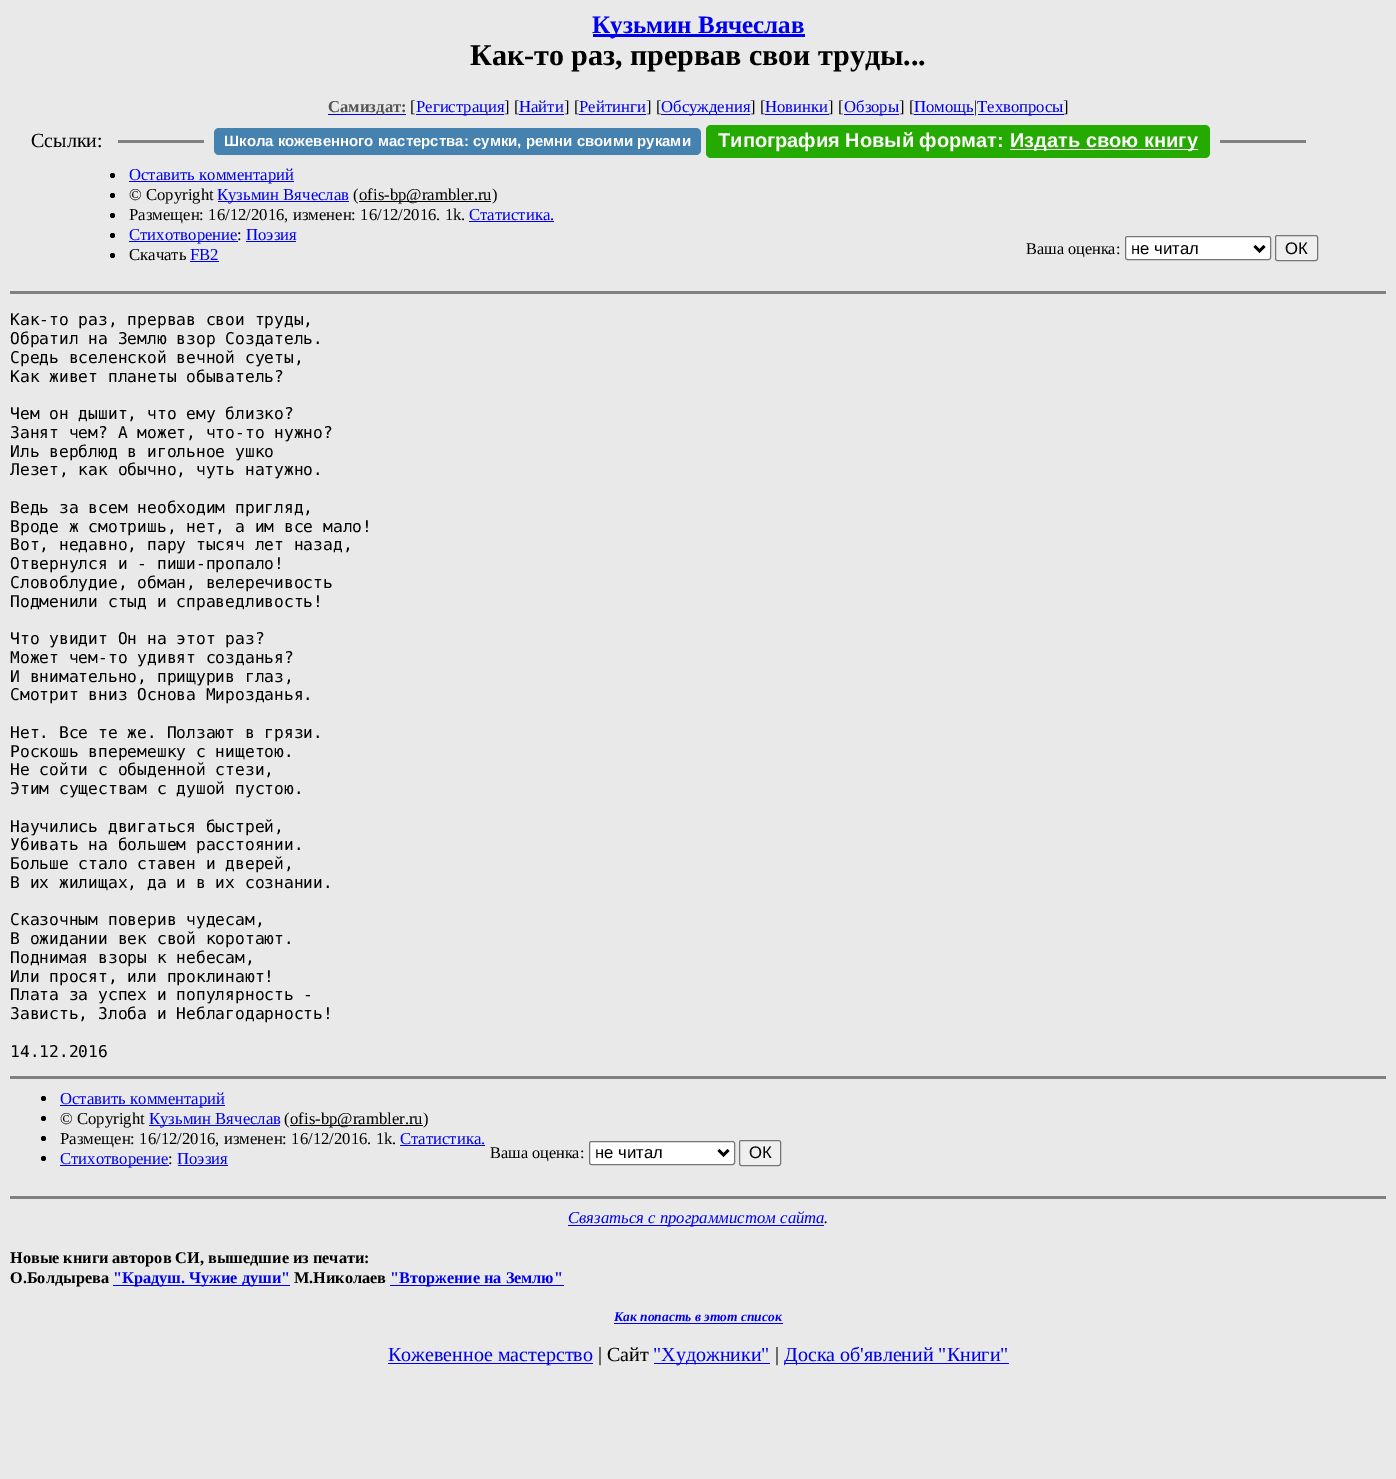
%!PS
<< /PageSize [1396 1479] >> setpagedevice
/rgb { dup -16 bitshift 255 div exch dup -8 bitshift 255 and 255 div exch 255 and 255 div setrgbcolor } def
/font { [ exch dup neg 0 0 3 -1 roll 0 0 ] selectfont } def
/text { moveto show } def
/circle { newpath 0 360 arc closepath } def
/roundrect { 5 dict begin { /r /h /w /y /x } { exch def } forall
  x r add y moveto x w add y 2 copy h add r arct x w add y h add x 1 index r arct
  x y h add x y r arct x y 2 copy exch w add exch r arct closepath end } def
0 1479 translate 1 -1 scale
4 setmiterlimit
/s1 { /LiberationSerif-Bold 25 font 16#0000EE rgb } def
/s2 { /LiberationSerif-Bold 30 font 16#000000 rgb } def
/s3 { /LiberationSerif-Bold 16.7 font 16#555555 rgb } def
/s4 { /LiberationSerif-Regular 16.7 font 16#000000 rgb } def
/s5 { /LiberationSerif-Regular 16.7 font 16#0000EE rgb } def
/s6 { /LiberationSerif-Regular 20 font 16#000000 rgb } def
/s7 { /LiberationSans-Bold 15 font 16#FFFFFF rgb } def
/s8 { /LiberationSans-Bold 20 font 16#FFFFFF rgb } def
/s9 { /LiberationSerif-Regular 16.25 font 16#000000 rgb } def
/s10 { /LiberationSans-Regular 16.7 font 16#000000 rgb } def
/s11 { /DejaVuSansMono-Regular 16.25 font 16#000000 rgb } def
/s12 { /LiberationSerif-Italic 16.7 font 16#0000EE rgb } def
/s13 { /LiberationSerif-Italic 16.7 font 16#000000 rgb } def
/s14 { /LiberationSerif-Bold 16.25 font 16#000000 rgb } def
/s15 { /LiberationSerif-Bold 16.25 font 16#0000EE rgb } def
/s16 { /LiberationSerif-BoldItalic 13.5 font 16#0000EE rgb } def
/s17 { /LiberationSerif-Regular 20 font 16#0000EE rgb } def
16#E9E9E9 rgb
0 0 1396 1479 rectfill
16#0000EE rgb
593 34 212 3 rectfill
s1
(Кузьмин Вячеслав) 592 33 text
s2
(Как-то раз, прервав свои труды...) 470 65 text
16#0000EE rgb
328 114 78 1 rectfill
s3
(Самиздат:) 328 112 text
s4
([) 410 112 text
16#0000EE rgb
416 114 88 1 rectfill
(Регистрация) 416 112 text
s4
(] [) 504 112 text
16#0000EE rgb
519 114 45 1 rectfill
(Найти) 519 112 text
s4
(] [) 564 112 text
16#0000EE rgb
579 114 67 1 rectfill
(Рейтинги) 579 112 text
s4
(] [) 646 112 text
16#0000EE rgb
661 114 89 1 rectfill
(Обсуждения) 661 112 text
s4
(] [) 750 112 text
16#0000EE rgb
765 114 64 1 rectfill
(Новинки) 765 112 text
s4
(] [) 828 112 text
16#0000EE rgb
844 114 55 1 rectfill
(Обзоры) 844 112 text
s4
(] [) 899 112 text
16#0000EE rgb
914 114 60 1 rectfill
(Помощь) 914 112 text
s4
(|) 974 112 text
16#0000EE rgb
978 114 86 1 rectfill
(Техвопросы) 977 112 text
s4
(]) 1063 112 text
s6
(Ссылки:) 31 147 text
16#808080 rgb
118 140 86 3 rectfill
16#4582AF rgb
214 128 487 27 5 roundrect fill
s7
(Школа кожевенного мастерства: сумки, ремни своими руками) 224 146 text
16#25AA00 rgb
706 125 504 33 5 roundrect fill
s8
(Типография Новый формат:) 718 147 text
1010 149 188 1 rectfill
(Издать свою книгу) 1010 147 text
16#808080 rgb
1220 140 86 3 rectfill
16#000000 rgb
112.5 175.5 2.5 circle fill
16#0000EE rgb
129 181 165 1 rectfill
s5
(Оставить комментарий) 129 180 text
16#000000 rgb
112.5 195.5 2.5 circle fill
(© Copyright) 129 200 text
16#0000EE rgb
218 201 131 1 rectfill
(Кузьмин Вячеслав) 217 200 text
s4
(\() 353 200 text
359 201 132 1 rectfill
(ofis-bp@rambler.ru\)) 359 200 text
112.5 215.5 2.5 circle fill
(Размещен: 16/12/2016, изменен: 16/12/2016. 1k.) 129 220 text
s5
(Статистика.) 469 220 text
469 221 85 1 rectfill
16#000000 rgb
112.5 235.5 2.5 circle fill
16#0000EE rgb
129 241 109 1 rectfill
(Стихотворение) 129 240 text
s4
(:) 237 240 text
s5
(Поэзия) 246 240 text
246 241 50 1 rectfill
16#000000 rgb
112.5 255.5 2.5 circle fill
(Скачать) 129 260 text
s5
(FB2) 190 260 text
190 261 29 1 rectfill
s9
(Ваша оценка:) 1026 254 text
16#FFFFFF rgb
1125.5 236.5 145 23 2 roundrect gsave fill grestore
16#767676 rgb
stroke
16#000000 rgb
2.5 setlinewidth
1254.5 246 moveto 1259.5 251 lineto 1264.5 246 lineto stroke
s10
(не читал) 1131 254 text
16#EFEFEF rgb
1275.5 235.5 42 25 2 roundrect gsave fill grestore
16#767676 rgb
1 setlinewidth
stroke
s10
(ОК) 1285 254 text
16#808080 rgb
10 291 1376 3 rectfill
s11
(Как-то раз, прервав свои труды,) 10 325 text
(Обратил на Землю взор Создатель.) 10 344 text
(Средь вселенской вечной суеты,) 10 363 text
(Как живет планеты обыватель?) 10 382 text
(Чем он дышит, что ему близко?) 10 419 text
(Занят чем? А может, что-то нужно?) 10 438 text
(Иль верблюд в игольное ушко) 10 457 text
(Лезет, как обычно, чуть натужно.) 10 475 text
(Ведь за всем необходим пригляд,) 10 513 text
(Вроде ж смотришь, нет, а им все мало!) 10 532 text
(Вот, недавно, пару тысяч лет назад,) 10 550 text
(Отвернулся и - пиши-пропало!) 10 569 text
(Словоблудие, обман, велеречивость) 10 588 text
(Подменили стыд и справедливость!) 10 607 text
(Что увидит Он на этот раз?) 10 644 text
(Может чем-то удивят созданья?) 10 663 text
(И внимательно, прищурив глаз,) 10 682 text
(Смотрит вниз Основа Мирозданья.) 10 700 text
(Нет. Все те же. Ползают в грязи.) 10 738 text
(Роскошь вперемешку с нищетою.) 10 757 text
(Не сойти с обыденной стези,) 10 775 text
(Этим существам с душой пустою.) 10 794 text
(Научились двигаться быстрей,) 10 832 text
(Убивать на большем расстоянии.) 10 850 text
(Больше стало ставен и дверей,) 10 869 text
(В их жилищах, да и в их сознании.) 10 888 text
(Сказочным поверив чудесам,) 10 925 text
(В ожидании век свой коротают.) 10 944 text
(Поднимая взоры к небесам,) 10 963 text
(Или просят, или проклинают!) 10 982 text
(Плата за успех и популярность -) 10 1000 text
(Зависть, Злоба и Неблагодарность!) 10 1019 text
(14.12.2016) 10 1057 text
16#808080 rgb
10 1076 1376 3 rectfill
16#000000 rgb
43.5 1098.5 2.5 circle fill
16#0000EE rgb
60 1105 165 1 rectfill
s5
(Оставить комментарий) 60 1104 text
16#000000 rgb
43.5 1118.5 2.5 circle fill
(© Copyright) 60 1124 text
16#0000EE rgb
149 1125 131 1 rectfill
(Кузьмин Вячеслав) 149 1124 text
s4
(\() 284 1124 text
290 1125 133 1 rectfill
(ofis-bp@rambler.ru\)) 290 1124 text
43.5 1138.5 2.5 circle fill
(Размещен: 16/12/2016, изменен: 16/12/2016. 1k.) 60 1144 text
s5
(Статистика.) 400 1144 text
400 1145 85 1 rectfill
16#000000 rgb
43.5 1158.5 2.5 circle fill
16#0000EE rgb
60 1165 109 1 rectfill
(Стихотворение) 60 1164 text
s4
(:) 168 1164 text
s5
(Поэзия) 177 1164 text
178 1165 50 1 rectfill
s9
(Ваша оценка:) 490 1158 text
16#FFFFFF rgb
589.5 1141.5 145 23 2 roundrect gsave fill grestore
16#767676 rgb
stroke
16#000000 rgb
2.5 setlinewidth
718.5 1150 moveto 723.5 1155 lineto 728.5 1150 lineto stroke
s10
(не читал) 595 1158 text
16#EFEFEF rgb
739.5 1140.5 41 25 2 roundrect gsave fill grestore
16#767676 rgb
1 setlinewidth
stroke
s10
(ОК) 749 1158 text
16#808080 rgb
10 1196 1376 3 rectfill
16#0000EE rgb
568 1225 256 1 rectfill
s12
(Связаться с программистом сайта) 568 1223 text
s13
(.) 824 1223 text
s14
(Новые книги авторов СИ, вышедшие из печати:) 10 1263 text
(О.Болдырева) 10 1283 text
16#0000EE rgb
113 1285 177 1 rectfill
("Крадуш. Чужие души") 113 1283 text
s14
(М.Николаев) 294 1283 text
16#0000EE rgb
390 1285 174 1 rectfill
("Вторжение на Землю") 390 1283 text
s16
(Как попасть в этoт список) 614 1321 text
614 1323 169 1 rectfill
388 1363 205 1 rectfill
s17
(Кожевенное мастерство) 388 1361 text
s6
(| Сайт) 598 1361 text
16#0000EE rgb
654 1363 116 1 rectfill
("Художники") 653 1361 text
s6
(|) 775 1361 text
16#0000EE rgb
784 1363 225 1 rectfill
(Доска об'явлений "Книги") 784 1361 text
showpage
